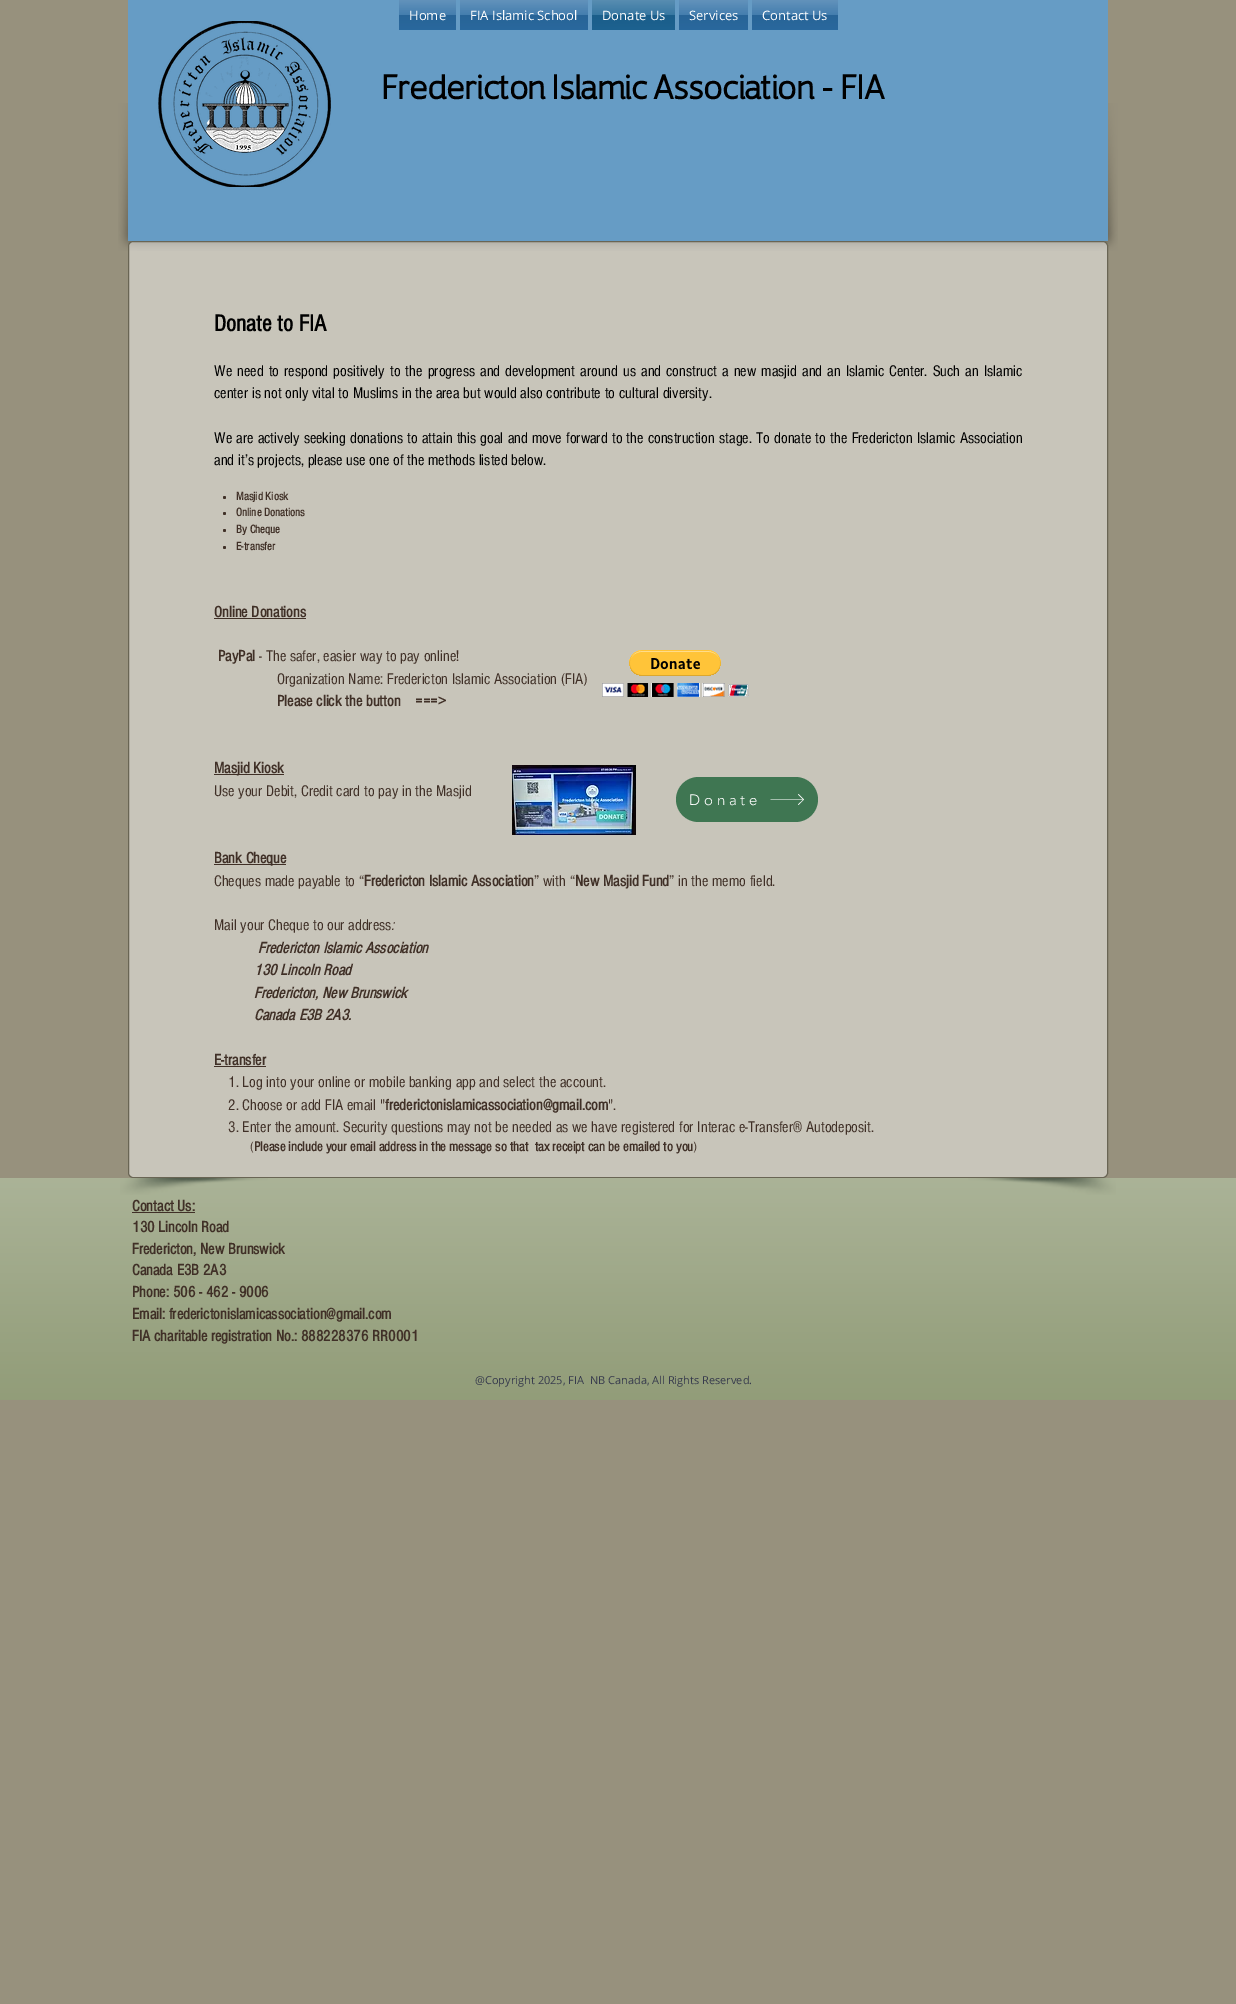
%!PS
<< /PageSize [1236 2004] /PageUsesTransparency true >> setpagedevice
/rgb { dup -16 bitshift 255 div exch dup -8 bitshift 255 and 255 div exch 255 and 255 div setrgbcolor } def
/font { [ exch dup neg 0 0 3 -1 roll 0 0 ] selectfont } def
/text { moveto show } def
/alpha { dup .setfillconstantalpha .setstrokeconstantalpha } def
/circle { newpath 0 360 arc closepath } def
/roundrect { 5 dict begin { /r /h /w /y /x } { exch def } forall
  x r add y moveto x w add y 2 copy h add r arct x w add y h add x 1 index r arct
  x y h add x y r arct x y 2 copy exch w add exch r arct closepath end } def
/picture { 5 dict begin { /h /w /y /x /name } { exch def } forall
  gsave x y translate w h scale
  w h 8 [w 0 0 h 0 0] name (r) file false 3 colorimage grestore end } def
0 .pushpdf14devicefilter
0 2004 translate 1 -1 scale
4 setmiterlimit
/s1 { /OpenSans-Regular 13 font 16#FFFFFF rgb } def
/s2 { /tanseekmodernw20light-Bold 50 font 16#000000 rgb } def
/s3 { /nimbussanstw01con-Bold 24 font 16#000000 rgb } def
/s4 { /nimbussanstw01con-Regular 16 font 16#000000 rgb } def
/s5 { /nimbussanstw01con-Bold 12 font 16#403027 rgb } def
/s6 { /nimbussanstw01con-Bold 16 font 16#403027 rgb } def
/s7 { /nimbussanstw01con-Regular 16 font 16#403027 rgb } def
/s8 { /nimbussanstw01con-Italic 16 font 16#403027 rgb } def
/s9 { /nimbussanstw01con-BoldItalic 16 font 16#403027 rgb } def
/s10 { /nimbussanstw01con-Regular 14 font 16#403027 rgb } def
/s11 { /nimbussanstw01con-Bold 14 font 16#403027 rgb } def
/s12 { /OpenSans-Regular 11 font 16#373B4D rgb } def
16#97917D rgb
0 0 1236 2004 rectfill
(pic1.raw) 118 103 45 148 picture
(pic3.raw) 1073 103 45 148 picture
16#669CC5 rgb
128 0 980 241 rectfill
(pic2.raw) 163 242 910 9 picture
16#2B6CA3 rgb
399 0 57 30 rectfill
(pic4.raw) 399 0 57 30 picture
s1
(Home) 409 20 text
16#2B6CA3 rgb
460 0 128 30 rectfill
(pic5.raw) 460 0 128 30 picture
s1
(FIA Islamic School) 470 20 text
16#1D6595 rgb
592 0 83 30 rectfill
(pic6.raw) 592 0 83 30 picture
s1
(Donate Us) 602 20 text
16#2B6CA3 rgb
679 0 69 30 rectfill
(pic7.raw) 679 0 69 30 picture
s1
(Services) 689 20 text
16#2B6CA3 rgb
752 0 86 30 rectfill
(pic8.raw) 752 0 86 30 picture
s1
(Contact Us) 762 20 text
(pic9.raw) 158 21 173 166 picture
s2
(Fredericton Islamic Association - FIA) 381 99 text
0.47 alpha
16#FFFFFF rgb
128.5 241.5 979 936 4.5 roundrect fill
1 alpha
16#696554 rgb
128.5 241.5 979 936 4.5 roundrect stroke
16#8D9872 rgb
0 1178 1236 222 rectfill
(pic10.raw) 120 1178 148 17 picture
(pic11.raw) 968 1178 148 17 picture
s3
(Donate to FIA) 214 331 text
/nimbussanstw01con-Regular 16 font
214 376 moveto 1.4 0 32 (We need to respond positively to the progress and development around us and construct a new masjid and an Islamic Center. Such an Islamic) widthshow
(center is not only vital to Muslims in the area but would also contribute to cultural diversity.) 214 398 text
214 443 moveto 0.5 0 32 (We are actively seeking donations to attain this goal and move forward to the construction stage.) widthshow
756 443 moveto 0.5 0 32 (To donate to the Fredericton Islamic Association) widthshow
(and it’s projects, please use one of the methods listed below.) 214 465 text
16#403027 rgb
224.5 497.5 1.5 circle fill
s5
(Masjid Kiosk) 236 500 text
224.5 513.5 1.5 circle fill
(Online Donations) 236 516 text
224.5 530.5 1.5 circle fill
(By Cheque) 236 533 text
224.5 547.5 1.5 circle fill
(E-transfer) 236 550 text
s6
(Online Donations) 214 617 text
214 618 92 1 rectfill
(PayPal) 218 661 text
s7
(- The safer, easier way to pay online!) 259 661 text
(Organization Name: Fredericton Islamic Association \(FIA\)) 277 684 text
s6
(Please click the button    ===>) 277 706 text
214 774 70 1 rectfill
(Masjid Kiosk) 214 773 text
s7
(Use your Debit, Credit card to pay in the Masjid) 214 796 text
214 864 72 1 rectfill
s6
(Bank Cheque) 214 863 text
s7
(Cheques made payable to “) 214 886 text
s6
(Fredericton Islamic Association) 364 886 text
s7
(” with “) 534 886 text
s6
(New Masjid Fund) 575 886 text
s7
(” in the memo field.) 669 886 text
(Mail your Cheque to our address) 214 930 text
s8
(:) 391 930 text
s9
(Fredericton Islamic Association) 258 953 text
(130 Lincoln Road) 254 975 text
(Fredericton, New Brunswick) 254 998 text
(Canada E3B 2A3.) 254 1020 text
s6
(E-transfer) 214 1065 text
214 1066 52 1 rectfill
s7
(1. Log into your online or mobile banking app and select the account.) 228 1087 text
(2. Choose or add FIA email ") 228 1110 text
s6
(frederictonislamicassociation@gmail.com) 385 1110 text
s7
(".) 608 1110 text
(3. Enter the amount. Security questions may not be needed as we have registered for Interac e-Transfer® Autodeposit.) 228 1132 text
s10
(\() 250 1151 text
s11
(Please include your email address in the message so that  tax receipt can be emailed to you) 254 1151 text
s10
(\)) 693 1151 text
(pic12.raw) 602 650 147 47 picture
(pic13.raw) 512 765 124 70 picture
16#3F7652 rgb
676 777 142 45 22.5 roundrect fill
/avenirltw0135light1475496-Light 15 font
16#FFFFFF rgb
689 805 moveto 3.75 0 (Donate) ashow
798.5 794 moveto 798 794.5 lineto 803 799.5 lineto 770.5 799.5 lineto 770.5 800 lineto 803 800 lineto 798 804.5 lineto 798.5 805 lineto 804 799.5 lineto closepath fill
(pic14.raw) 0 1178 1236 222 picture
s6
(Contact Us:) 132 1211 text
132 1212 63 1 rectfill
(130 Lincoln Road) 132 1232 text
(Fredericton, New Brunswick) 132 1254 text
(Canada E3B 2A3) 132 1275 text
(Phone: 506 - 462 - 9006) 132 1297 text
(Email: frederictonislamicassociation@gmail.com) 132 1319 text
(FIA charitable registration No.: 888228376 RR0001) 132 1341 text
s12
(@Copyright 2025, FIA  NB Canada, All Rights Reserved.) 475 1384 text
.poppdf14devicefilter showpage
